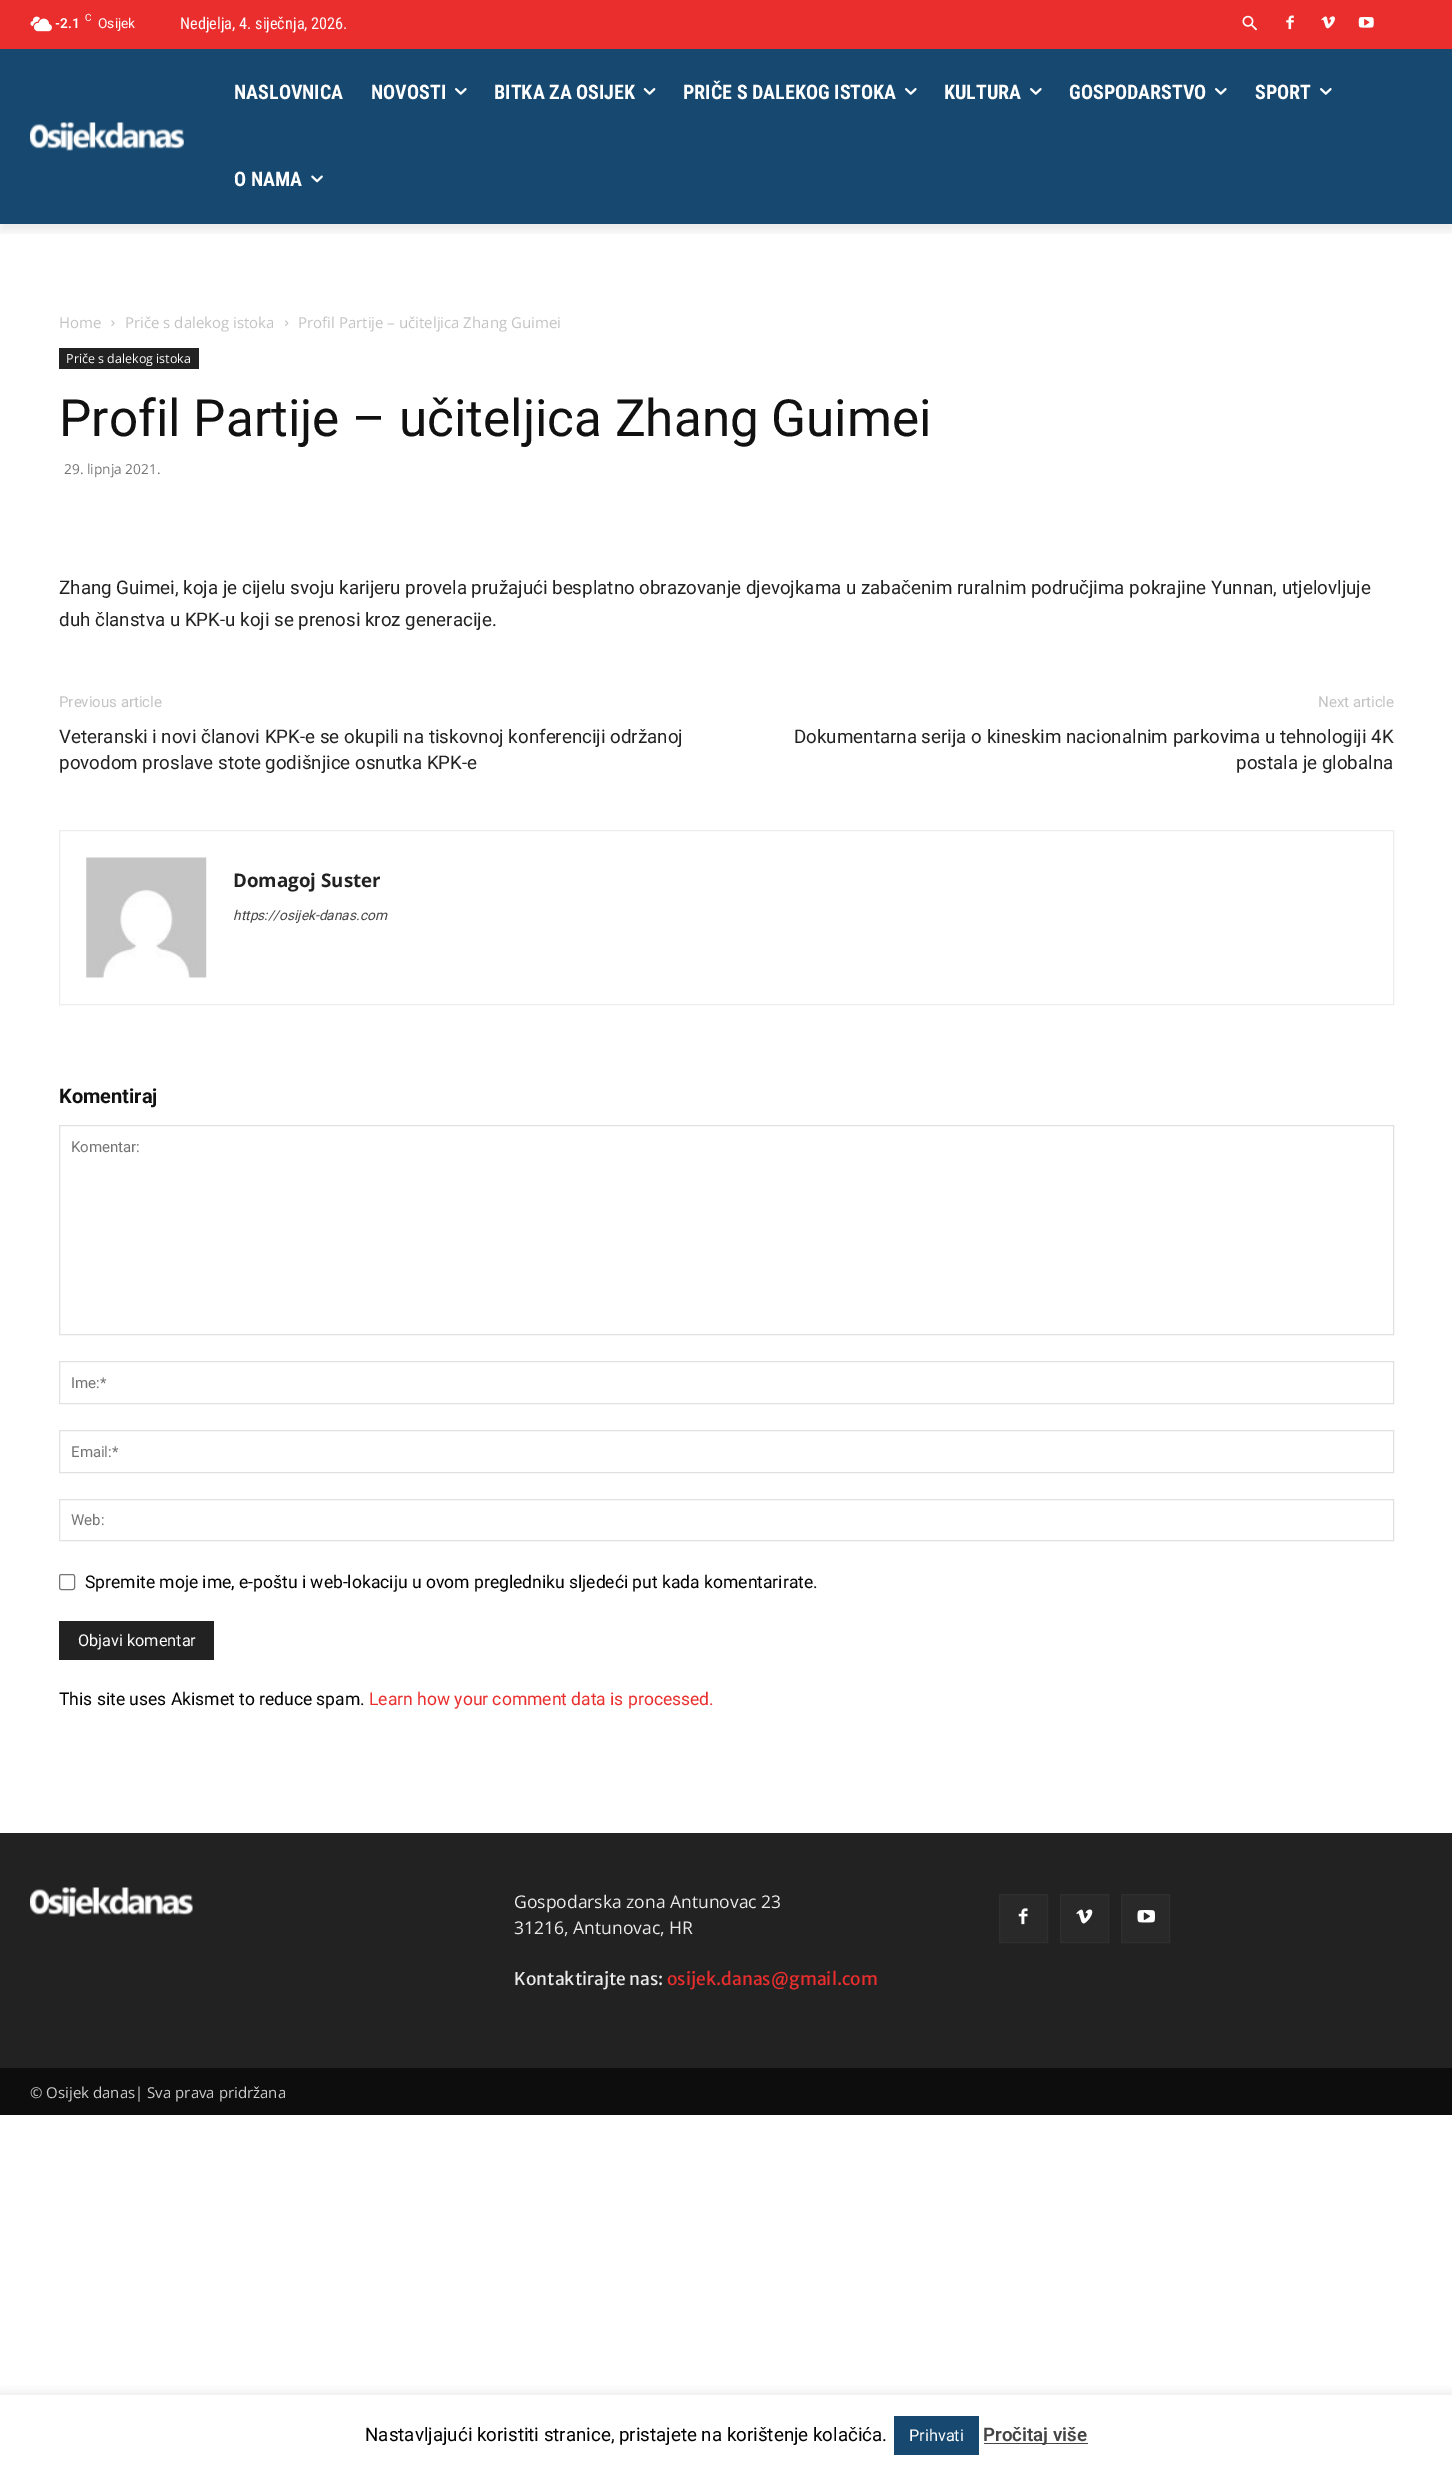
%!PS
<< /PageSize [1452 2470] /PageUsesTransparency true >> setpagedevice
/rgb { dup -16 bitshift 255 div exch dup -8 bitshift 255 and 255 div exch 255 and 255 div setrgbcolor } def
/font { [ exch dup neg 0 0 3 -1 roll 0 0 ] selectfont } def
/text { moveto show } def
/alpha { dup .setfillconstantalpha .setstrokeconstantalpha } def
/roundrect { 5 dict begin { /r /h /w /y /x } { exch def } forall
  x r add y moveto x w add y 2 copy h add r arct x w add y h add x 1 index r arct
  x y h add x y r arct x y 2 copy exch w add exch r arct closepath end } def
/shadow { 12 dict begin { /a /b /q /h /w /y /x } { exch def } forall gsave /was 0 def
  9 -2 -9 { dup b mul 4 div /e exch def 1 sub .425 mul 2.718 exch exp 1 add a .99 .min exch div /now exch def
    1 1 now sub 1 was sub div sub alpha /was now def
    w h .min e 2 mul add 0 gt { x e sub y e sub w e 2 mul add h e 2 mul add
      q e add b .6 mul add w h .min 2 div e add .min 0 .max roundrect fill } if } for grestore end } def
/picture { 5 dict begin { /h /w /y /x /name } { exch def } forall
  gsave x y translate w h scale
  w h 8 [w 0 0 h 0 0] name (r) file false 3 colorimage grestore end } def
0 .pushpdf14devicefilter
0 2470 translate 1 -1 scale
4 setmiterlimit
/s1 { /Roboto-SemiBold 13.75 font 16#FFFFFF rgb } def
/s2 { /Roboto-Regular 10 font 16#FFFFFF rgb } def
/s3 { /Roboto-Regular 13.75 font 16#FFFFFF rgb } def
/s4 { /RobotoCondensed-Regular 16.25 font 16#FFFFFF rgb } def
/s5 { /RobotoCondensed-Bold 20 font 16#FFFFFF rgb } def
/s6 { /OpenSans-Regular 15 font 16#C3C3C3 rgb } def
/s7 { /OpenSans-Regular 12.5 font 16#FFFFFF rgb } def
/s8 { /Roboto-Regular 51.25 font 16#111111 rgb } def
/s9 { /OpenSans-Regular 13.75 font 16#757575 rgb } def
/s10 { /Roboto-Regular 18.75 font 16#222222 rgb } def
/s11 { /Roboto-Regular 15 font 16#C3C3C3 rgb } def
/s12 { /OpenSans-Bold 18.75 font 16#222222 rgb } def
/s13 { /Roboto-Italic 13.75 font 16#444444 rgb } def
/s14 { /Roboto-Bold 20 font 16#111111 rgb } def
/s15 { /Roboto-Regular 15 font 16#757575 rgb } def
/s16 { /Roboto-Regular 17.5 font 16#000000 rgb } def
/s17 { /Roboto-Regular 16.25 font 16#FFFFFF rgb } def
/s18 { /Roboto-Regular 17.5 font 16#EA2E2E rgb } def
/s19 { /OpenSans-Regular 17.5 font 16#EAEAEA rgb } def
/s20 { /MerriweatherSans-Regular 17.5 font 16#EAEAEA rgb } def
/s21 { /MerriweatherSans-Regular 17.5 font 16#EA2E2E rgb } def
/s22 { /OpenSans-Regular 15 font 16#CCCCCC rgb } def
/s23 { /Roboto-Regular 18.75 font 16#000000 rgb } def
/s24 { /Roboto-SemiBold 18.75 font 16#444444 rgb } def
16#FFFFFF rgb
0 0 1452 2470 rectfill
16#EA2E2E rgb
0 0 1452 49 rectfill
(pic1.raw) 30 16 22 16 picture
s1
(-2.1) 55 28 text
s2
(C) 85 21 text
s3
(Osijek) 98 28 text
s4
(Nedjelja, 4. siječnja, 2026.) 180 29 text
(pic2.raw) 1242 15 15 16 picture
(pic3.raw) 1286 15 8 15 picture
(pic4.raw) 1321 16 14 13 picture
(pic5.raw) 1358 17 16 11 picture
16#174970 rgb
0 49 1452 175 rectfill
(pic6.raw) 30 122 154 29 picture
gsave
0 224 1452 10 rectclip
16#000000 rgb
0 56 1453 175 0 5 0.08 shadow
grestore
s5
(NASLOVNICA) 234 99 text
(NOVOSTI) 371 99 text
(pic7.raw) 455 88 12 7 picture
(BITKA ZA OSIJEK) 494 99 text
(pic8.raw) 643 88 13 7 picture
(PRIČE S DALEKOG ISTOKA) 683 99 text
(pic7.raw) 905 88 12 7 picture
(KULTURA) 944 99 text
(pic7.raw) 1030 88 12 7 picture
(GOSPODARSTVO) 1069 99 text
(pic7.raw) 1215 88 12 7 picture
(SPORT) 1255 99 text
(pic7.raw) 1320 88 12 7 picture
(O NAMA) 234 186 text
(pic9.raw) 311 175 12 8 picture
s6
(Home) 59 328 text
(pic10.raw) 111 320 4 6 picture
(Priče s dalekog istoka) 125 328 text
(pic11.raw) 285 320 4 6 picture
(Profil Partije – učiteljica Zhang Guimei) 298 328 text
16#222222 rgb
59 348 140 21 rectfill
s7
(Priče s dalekog istoka) 66 363 text
s8
(Profil Partije – učiteljica Zhang Guimei) 59 436 text
s9
(29. lipnja 2021.) 64 474 text
s10
(Zhang Guimei, koja je cijelu svoju karijeru provela pružajući besplatno obrazovanje djevojkama u zabačenim ruralnim područjima pokrajine Yunnan, utjelovljuje) 59 594 text
(duh članstva u KPK-u koji se prenosi kroz generacije.) 59 626 text
s11
(Previous article) 59 707 text
s10
(Veteranski i novi članovi KPK-e se okupili na tiskovnoj konferenciji održanoj) 59 743 text
(povodom proslave stote godišnjice osnutka KPK-e) 59 769 text
s11
(Next article) 1318 707 text
s10
(Dokumentarna serija o kineskim nacionalnim parkovima u tehnologiji 4K) 794 743 text
(postala je globalna) 1236 769 text
16#EDEDED rgb
59.5 830.5 1334 174 rectstroke
(pic12.raw) 86 857 121 121 picture
s12
(Domagoj Suster) 233 887 text
s13
(https://osijek-danas.com) 233 920 text
s14
(Komentiraj) 59 1103 text
16#E1E1E1 rgb
59.5 1125.5 1334 209 rectstroke
s15
(Komentar:) 71 1152 text
16#E1E1E1 rgb
59.5 1361.5 1334 42 rectstroke
s15
(Ime:*) 71 1388 text
16#E1E1E1 rgb
59.5 1430.5 1334 42 rectstroke
s15
(Email:*) 71 1457 text
16#E1E1E1 rgb
59.5 1499.5 1334 41 rectstroke
s15
(Web:) 71 1525 text
16#767676 rgb
59.5 1574.5 15 15 2 roundrect stroke
s16
(Spremite moje ime, e-poštu i web-lokaciju u ovom pregledniku sljedeći put kada komentarirate.) 85 1588 text
16#222222 rgb
59 1621 155 39 rectfill
s17
(Objavi komentar) 78 1646 text
s16
(This site uses Akismet to reduce spam.) 59 1705 text
s18
(Learn how your comment data is processed.) 369 1705 text
16#222222 rgb
0 1833 1452 235 rectfill
(pic13.raw) 30 1887 163 30 picture
s19
(Gospodarska zona Antunovac 23) 514 1908 text
(31216, Antunovac, HR) 514 1934 text
s20
(Kontaktirajte nas:) 514 1985 text
s21
(osijek.danas@gmail.com) 667 1985 text
16#292929 rgb
999.5 1894.5 moveto 1047.5 1894.5 lineto 1047.5 1942.5 lineto 999.5 1942.5 lineto closepath gsave fill grestore
16#2F2F2F rgb
stroke
(pic14.raw) 1018 1908 10 17 picture
16#292929 rgb
1060.5 1894.5 moveto 1108.5 1894.5 lineto 1108.5 1942.5 lineto 1060.5 1942.5 lineto closepath gsave fill grestore
16#2F2F2F rgb
stroke
(pic15.raw) 1076 1909 17 15 picture
16#292929 rgb
1121.5 1894.5 moveto 1169.5 1894.5 lineto 1169.5 1942.5 lineto 1121.5 1942.5 lineto closepath gsave fill grestore
16#2F2F2F rgb
stroke
(pic16.raw) 1137 1910 18 13 picture
16#0D0D0D rgb
0 2068 1452 47 rectfill
s22
(© Osijek danas| Sva prava pridržana) 30 2098 text
gsave
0 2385 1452 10 rectclip
16#ACABAB rgb
0 2394 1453 75 0 6 0.3 shadow
grestore
s23
(Nastavljajući koristiti stranice, pristajete na korištenje kolačića.) 365 2441 text
16#174970 rgb
894 2416 85 39 rectfill
s17
(Prihvati) 909 2441 text
16#444444 rgb
984 2443 104 1 rectfill
s24
(Pročitaj više) 983 2441 text
.poppdf14devicefilter showpage
